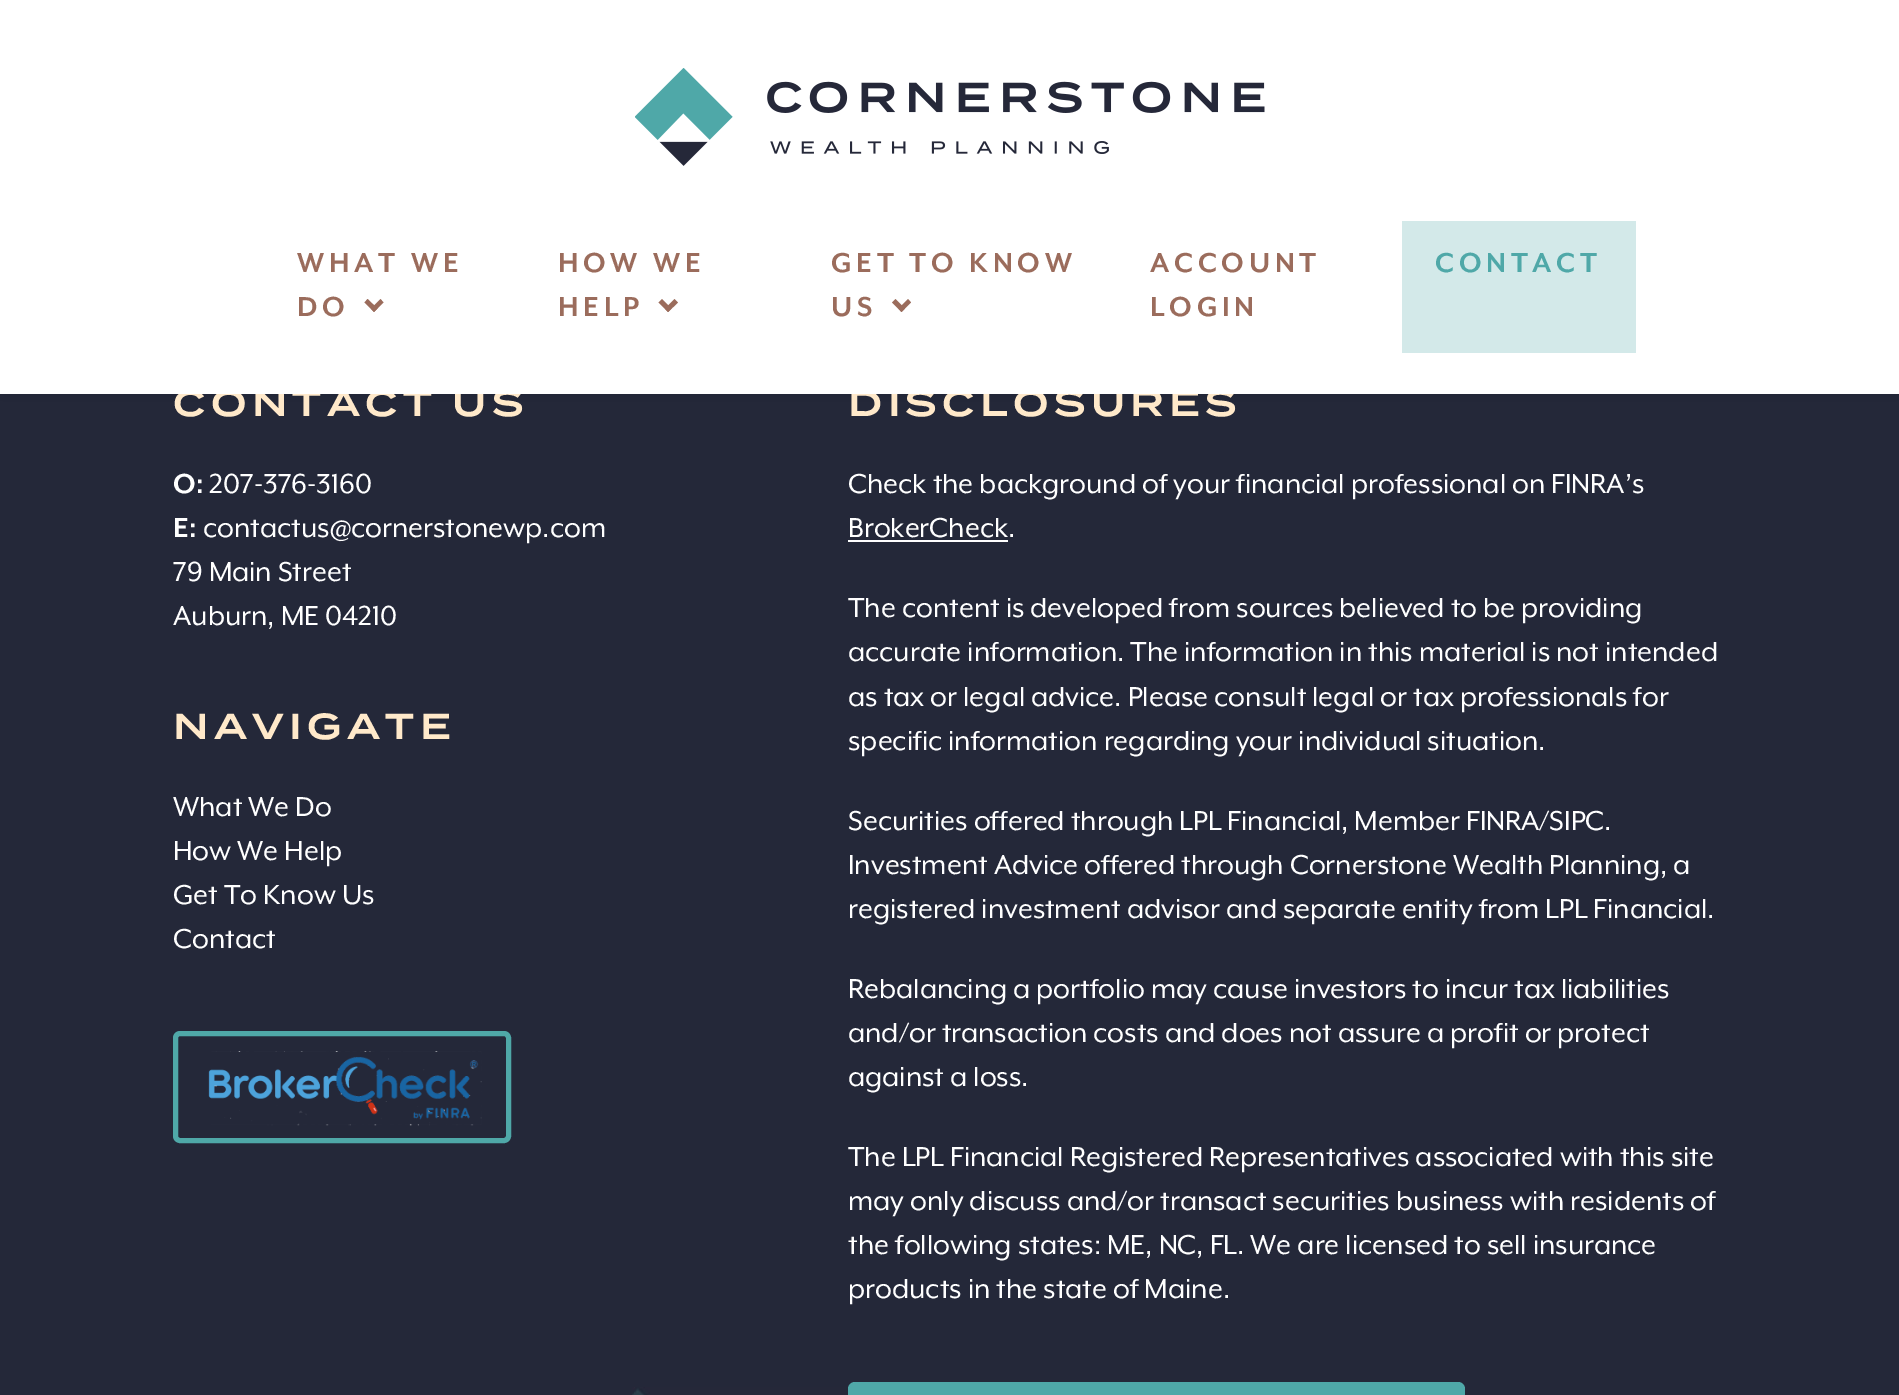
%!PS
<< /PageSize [1899 1395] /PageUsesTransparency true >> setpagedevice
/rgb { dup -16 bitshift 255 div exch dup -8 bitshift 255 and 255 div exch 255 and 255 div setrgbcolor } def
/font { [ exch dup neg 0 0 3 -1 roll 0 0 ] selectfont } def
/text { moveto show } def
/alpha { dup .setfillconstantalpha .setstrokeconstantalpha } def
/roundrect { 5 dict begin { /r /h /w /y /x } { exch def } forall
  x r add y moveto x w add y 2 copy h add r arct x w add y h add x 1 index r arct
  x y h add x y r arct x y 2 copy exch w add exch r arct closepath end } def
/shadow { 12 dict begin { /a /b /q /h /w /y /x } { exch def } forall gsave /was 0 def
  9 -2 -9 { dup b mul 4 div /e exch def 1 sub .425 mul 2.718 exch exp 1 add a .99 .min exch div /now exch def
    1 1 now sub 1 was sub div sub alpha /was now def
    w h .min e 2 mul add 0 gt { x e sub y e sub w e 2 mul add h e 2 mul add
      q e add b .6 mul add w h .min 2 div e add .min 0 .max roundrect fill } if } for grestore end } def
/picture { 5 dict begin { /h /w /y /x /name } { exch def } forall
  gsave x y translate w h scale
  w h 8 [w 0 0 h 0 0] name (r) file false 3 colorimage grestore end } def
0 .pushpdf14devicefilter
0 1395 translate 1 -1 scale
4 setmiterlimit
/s1 { /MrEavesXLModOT-Bold 31.5 font 16#FFFFFF rgb } def
/s2 { /MrEavesXLModOT-Regular 31.5 font 16#FFFFFF rgb } def
16#242839 rgb
0 0 1899 1395 rectfill
16#000000 rgb
0 0 1899 394 0 11 0.1 shadow
/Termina-SemiBold 36 font
16#FFE9CA rgb
173 416 moveto 5.4 0 (CONTACT US) ashow
848 416 moveto 5.4 0 (DISCLOSURES) ashow
16#FFFFFF rgb
0 0 1899 394 rectfill
(pic1.raw) 635 68 630 98 picture
/MrEavesXLModOT-Bold 31.5 font
16#9B6C5C rgb
297 272 moveto 4.75 0 (WHAT WE) ashow
297 316 moveto 4.75 0 (DO) ashow
380.5 299 moveto 383.5 302.5 lineto 374 312 lineto 371 308.5 lineto closepath fill
367.5 299 moveto 377.5 308.5 lineto 374 312 lineto 364.5 302.5 lineto closepath fill
558 272 moveto 4.75 0 (HOW WE) ashow
558 316 moveto 4.75 0 (HELP) ashow
674.5 299 moveto 678 302.5 lineto 668 312 lineto 665 308.5 lineto closepath fill
662 299 moveto 671.5 308.5 lineto 668 312 lineto 658.5 302.5 lineto closepath fill
831 272 moveto 4.75 0 (GET TO KNOW) ashow
831 316 moveto 4.75 0 (US) ashow
908 299 moveto 911 302.5 lineto 901.5 312 lineto 898.5 308.5 lineto closepath fill
895.5 299 moveto 905 308.5 lineto 901.5 312 lineto 892 302.5 lineto closepath fill
1150 272 moveto 4.75 0 (ACCOUNT) ashow
1150 316 moveto 4.75 0 (LOGIN) ashow
16#D3E9E9 rgb
1402 221 234 132 rectfill
16#4FA8A8 rgb
1435 272 moveto 4.75 0 (CONTACT) ashow
(pic2.raw) 632 1387 217 8 picture
s1
(O:) 173 493 text
s2
(207-376-3160) 209 493 text
s1
(E:) 173 537 text
s2
(contactus@cornerstonewp.com) 203 537 text
(79 Main Street) 173 581 text
(Auburn, ME 04210) 173 625 text
/Termina-SemiBold 36 font
16#FFE9CA rgb
173 739 moveto 5.4 0 (NAVIGATE) ashow
s2
(What We Do) 173 816 text
(How We Help) 173 860 text
(Get To Know Us) 173 904 text
(Contact) 173 948 text
(pic3.raw) 208 1051 274 75 picture
16#4FA8A8 rgb
5 setlinewidth
175.5 1033.5 333 107 4.5 roundrect stroke
s2
(Check the background of your financial professional on FINRA’s) 848 493 text
(BrokerCheck.) 848 537 text
848 540 160 2 rectfill
(The content is developed from sources believed to be providing) 848 617 text
(accurate information. The information in this material is not intended) 848 661 text
(as tax or legal advice. Please consult legal or tax professionals for) 848 706 text
(specific information regarding your individual situation.) 848 750 text
(Securities offered through LPL Financial, Member FINRA/SIPC.) 848 830 text
(Investment Advice offered through Cornerstone Wealth Planning, a) 848 874 text
(registered investment advisor and separate entity from LPL Financial.) 848 918 text
(Rebalancing a portfolio may cause investors to incur tax liabilities) 848 998 text
(and/or transaction costs and does not assure a profit or protect) 848 1042 text
(against a loss.) 848 1086 text
(The LPL Financial Registered Representatives associated with this site) 848 1166 text
(may only discuss and/or transact securities business with residents of) 848 1210 text
(the following states: ME, NC, FL. We are licensed to sell insurance) 848 1254 text
(products in the state of Maine.) 848 1298 text
16#4FA8A8 rgb
848 1382 617 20 7 roundrect fill
.poppdf14devicefilter showpage
